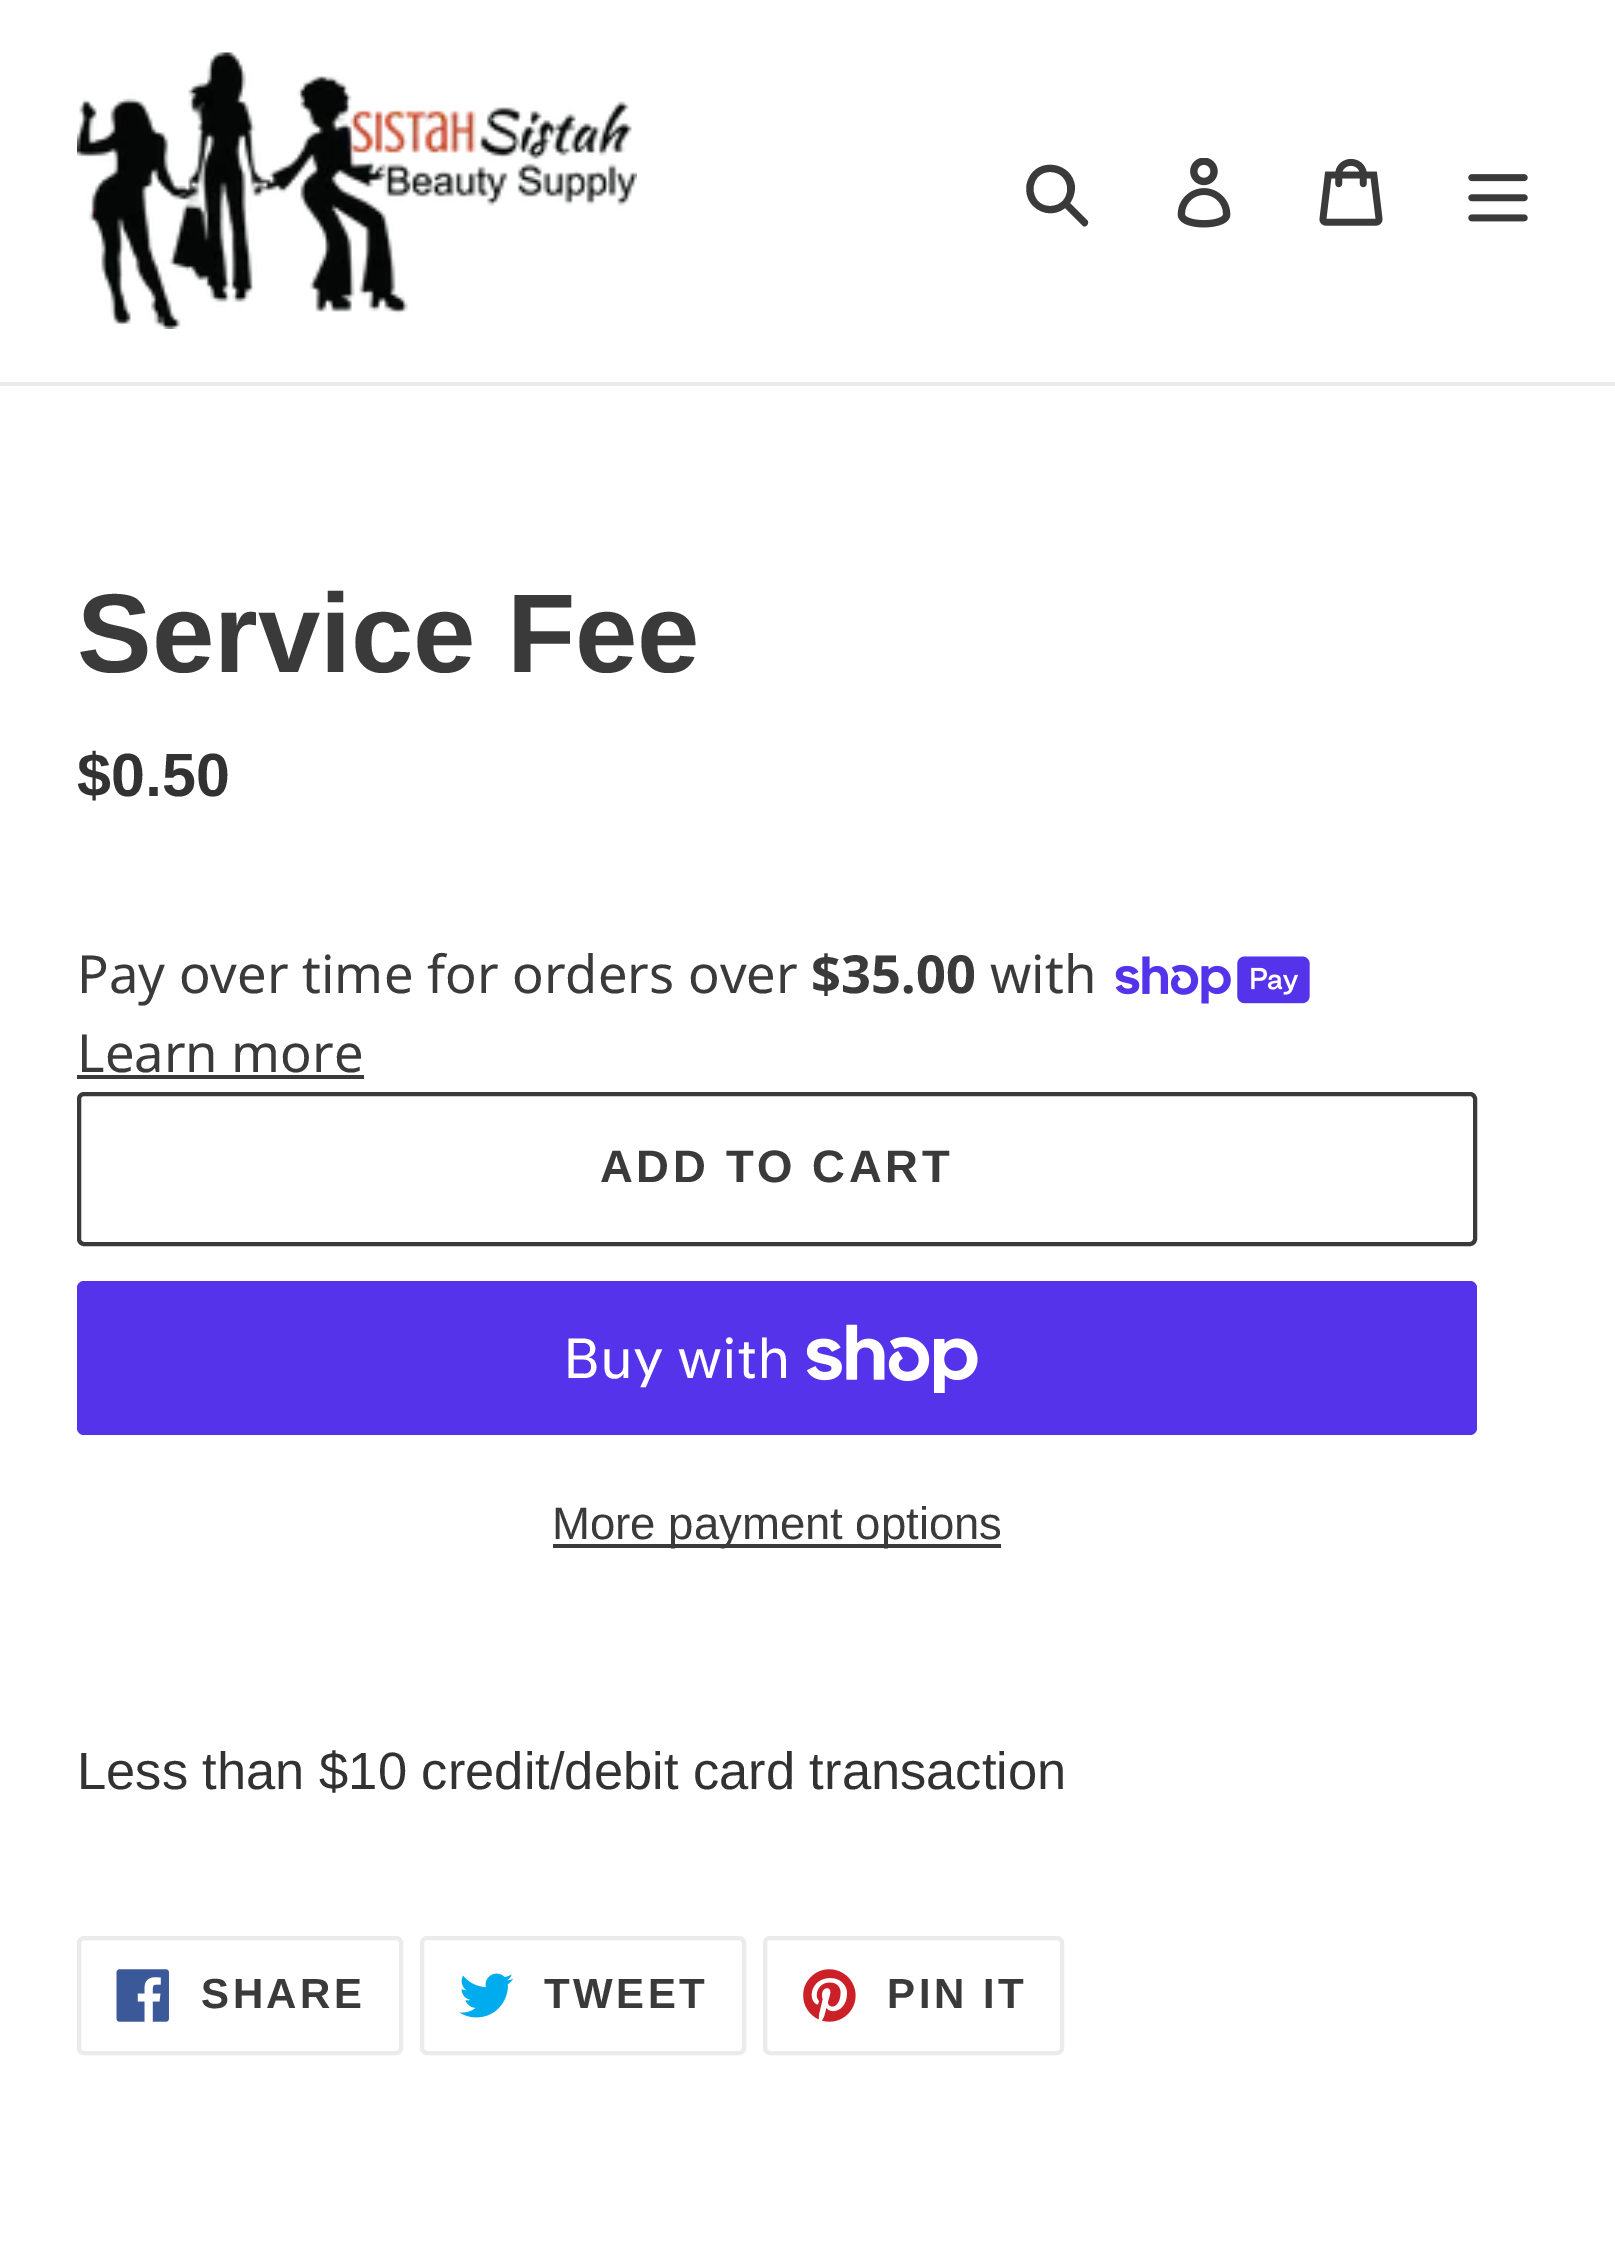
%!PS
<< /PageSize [1615 2241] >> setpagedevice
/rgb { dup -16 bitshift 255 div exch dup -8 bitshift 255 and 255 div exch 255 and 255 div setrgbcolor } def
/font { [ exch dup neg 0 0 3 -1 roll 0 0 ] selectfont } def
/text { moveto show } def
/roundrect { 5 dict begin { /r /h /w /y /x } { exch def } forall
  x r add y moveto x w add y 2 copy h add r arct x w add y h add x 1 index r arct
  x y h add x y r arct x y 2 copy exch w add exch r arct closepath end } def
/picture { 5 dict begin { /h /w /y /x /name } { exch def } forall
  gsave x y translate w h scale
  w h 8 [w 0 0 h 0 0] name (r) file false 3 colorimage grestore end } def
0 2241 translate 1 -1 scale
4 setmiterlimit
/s1 { /LiberationSans-Bold 112 font 16#3A3A3A rgb } def
/s2 { /LiberationSans-Bold 61 font 16#333232 rgb } def
/s3 { /NotoSans-Regular 52.5 font 16#3A3A3A rgb } def
/s4 { /NotoSans-Bold 52.5 font 16#3A3A3A rgb } def
/s5 { /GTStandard-Regular 56 font 16#FFFFFF rgb } def
/s6 { /LiberationSans-Regular 45.5 font 16#3A3A3A rgb } def
/s7 { /LiberationSans-Regular 52.5 font 16#333232 rgb } def
16#FFFFFF rgb
0 0 1615 2241 rectfill
16#EBEBEB rgb
0 382 1615 4 rectfill
(pic1.raw) 77 52 560 277 picture
16#3A3A3A rgb
1087 220 moveto 1070 203 lineto 1073 199 1075 193 1075 187 curveto 1073 162 1037 156 1028 180 curveto 1025 187 1026 196 1030 202 curveto 1038 214 1054 217 1065 208 curveto 1083 226 lineto 1086 228 1090 223 1087 220 curveto closepath 1050 206 moveto 1028 206 1028 172 1050 172 curveto 1073 172 1073 206 1050 206 curveto closepath fill
(pic2.raw) 1177 158 54 70 picture
(pic3.raw) 1319 158 64 68 picture
(pic4.raw) 1468 174 60 48 picture
s1
(Service Fee) 77 672 text
s2
($0.50) 77 796 text
s3
(Pay over time for orders over) 77 993 text
s4
($35.00) 811 993 text
s3
(with) 990 993 text
(pic5.raw) 1115 956 195 48 picture
(Learn more) 77 1072 text
77 1075 287 4 rectfill
4 setlinewidth
79 1094 1396 150 5 roundrect stroke
/LiberationSans-Bold 45.5 font
600 1182 moveto 3.6 0 (ADD TO CART) ashow
16#5433EB rgb
77 1281 1400 154 7 roundrect fill
s5
(Buy with) 563 1378 text
(pic6.raw) 806 1324 172 69 picture
16#3A3A3A rgb
553 1544 448 4 rectfill
s6
(More payment options) 552 1539 text
s7
(Less than $10 credit/debit card transaction) 77 1789 text
16#EBEBEB rgb
79 1938 322 115 5 roundrect stroke
(pic7.raw) 116 1969 53 53 picture
/LiberationSans-Bold 42 font
16#3A3A3A rgb
201 2008 moveto 3.5 0 (SHARE) ashow
16#EBEBEB rgb
422 1938 322 115 5 roundrect stroke
(pic8.raw) 459 1973 55 45 picture
16#3A3A3A rgb
544 2008 moveto 3.5 0 (TWEET) ashow
16#EBEBEB rgb
765 1938 297 115 5 roundrect stroke
(pic9.raw) 803 1969 53 53 picture
16#3A3A3A rgb
887 2008 moveto 3.5 0 (PIN IT) ashow
showpage
